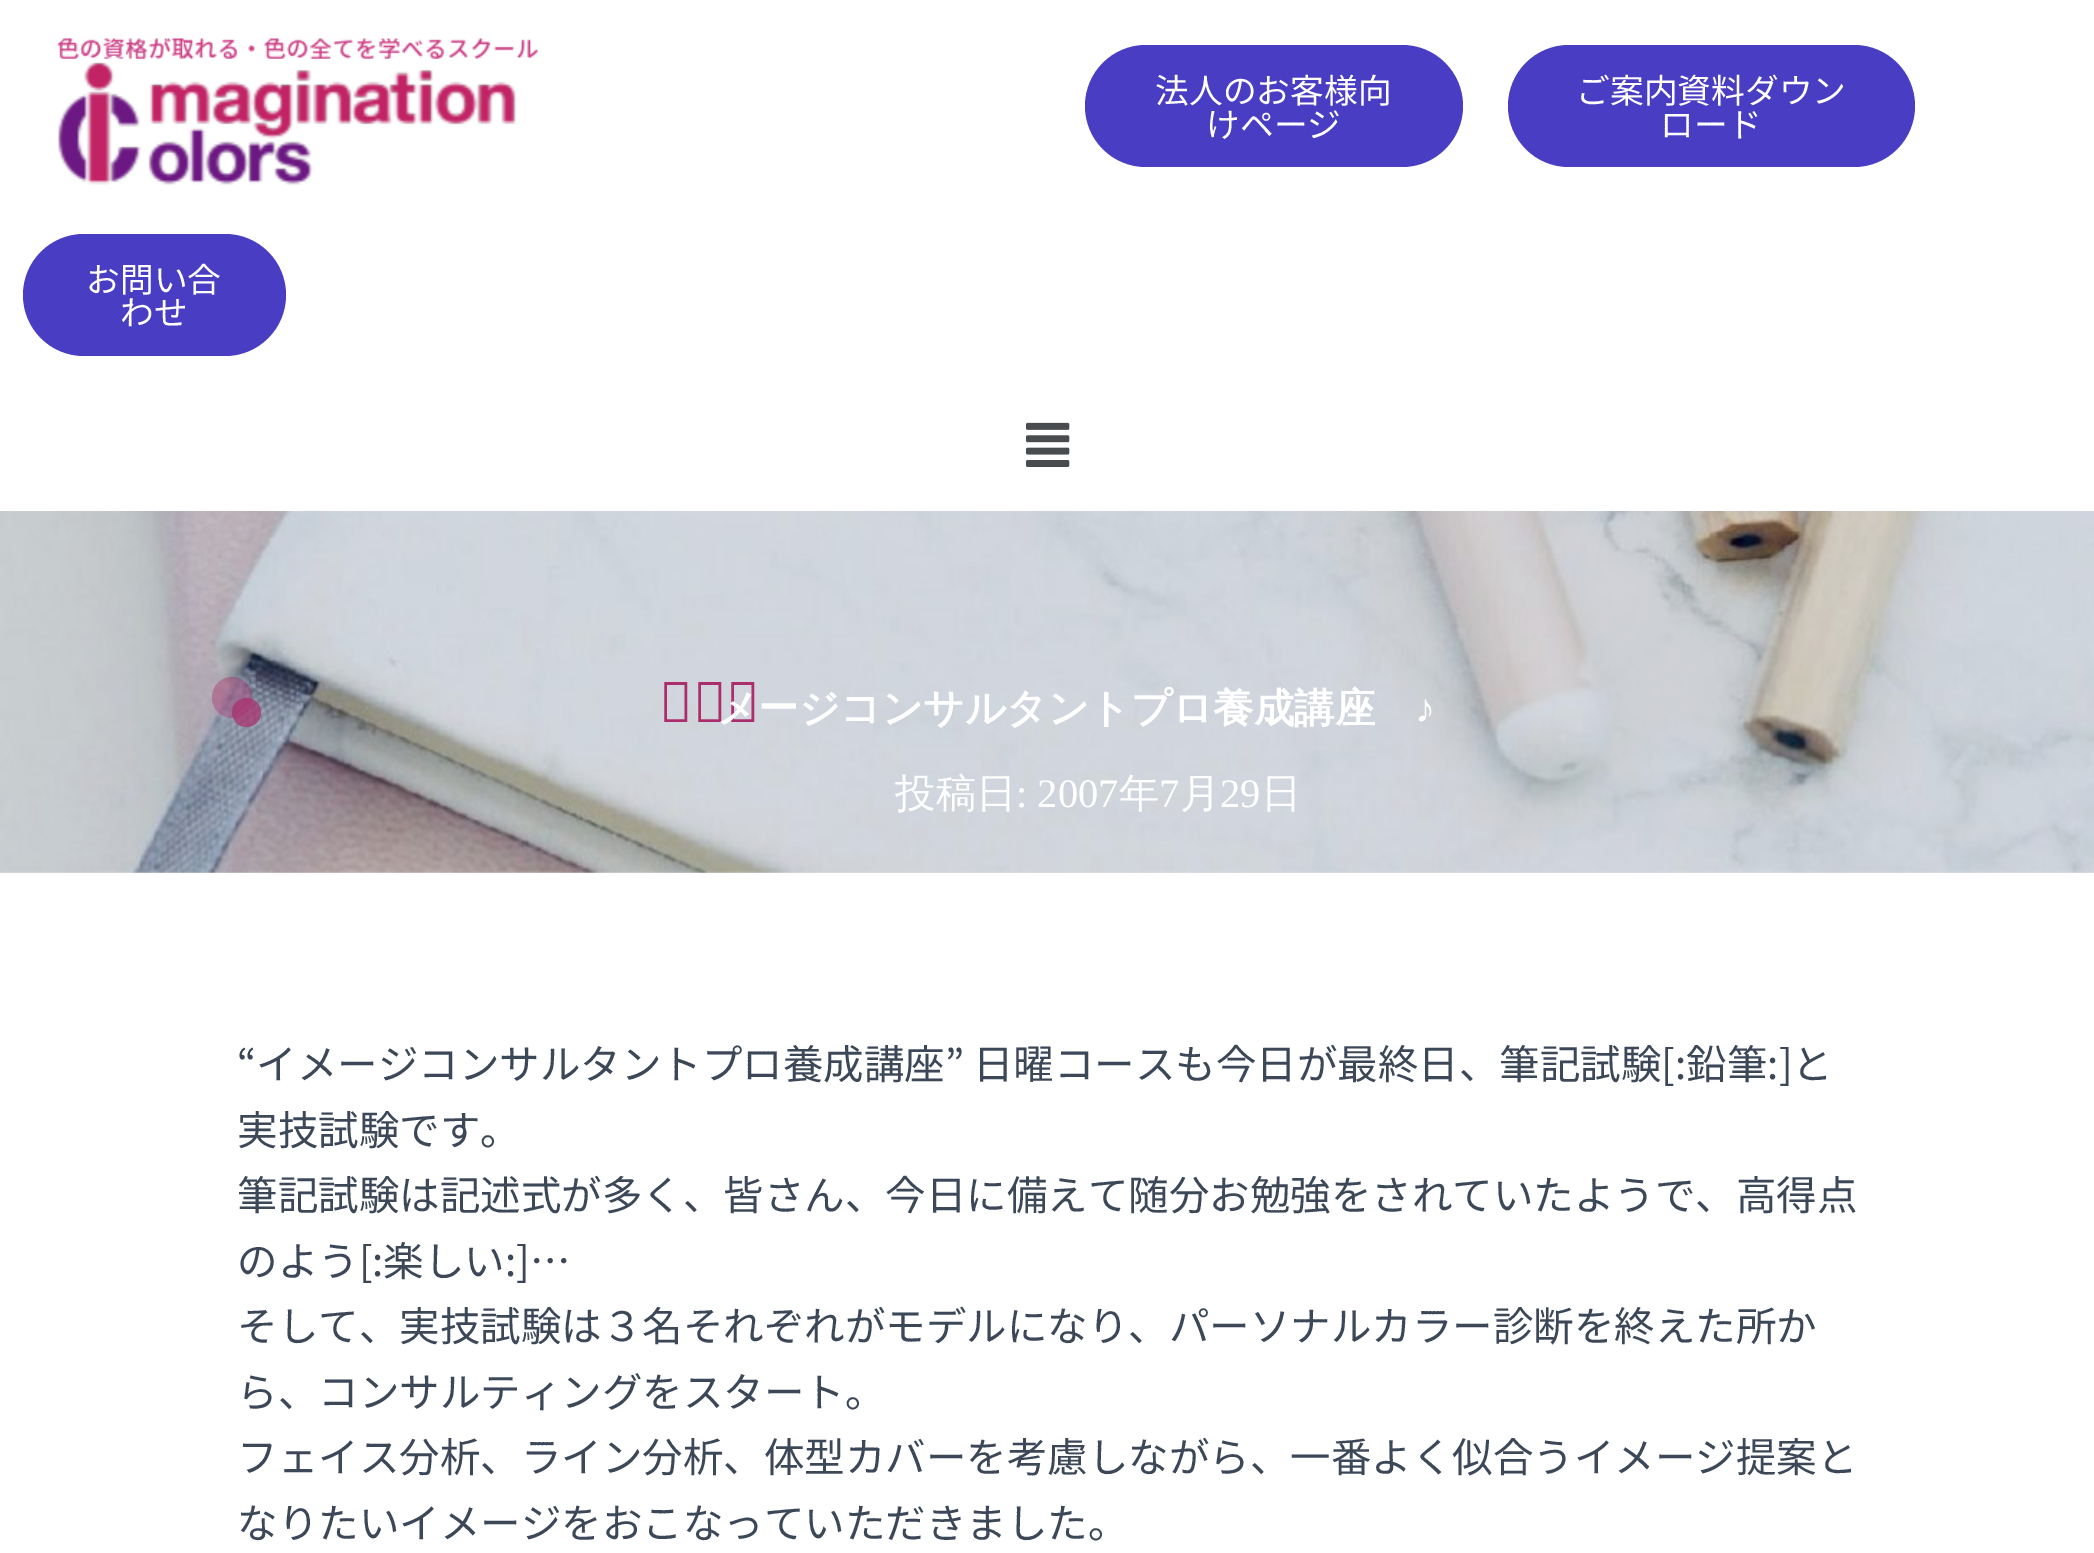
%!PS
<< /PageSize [2094 1553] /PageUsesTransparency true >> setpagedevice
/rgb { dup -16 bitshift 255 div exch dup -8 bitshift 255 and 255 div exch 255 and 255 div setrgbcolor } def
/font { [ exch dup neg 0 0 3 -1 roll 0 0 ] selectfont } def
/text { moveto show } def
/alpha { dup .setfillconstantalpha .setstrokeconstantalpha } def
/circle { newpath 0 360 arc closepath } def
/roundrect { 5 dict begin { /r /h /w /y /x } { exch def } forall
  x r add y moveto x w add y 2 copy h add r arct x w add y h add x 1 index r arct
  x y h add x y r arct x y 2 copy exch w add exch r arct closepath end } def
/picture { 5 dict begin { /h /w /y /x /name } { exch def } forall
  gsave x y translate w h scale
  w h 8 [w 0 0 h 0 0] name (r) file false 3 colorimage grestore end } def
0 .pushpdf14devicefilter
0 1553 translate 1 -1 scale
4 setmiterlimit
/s1 { /NotoSansJP-Thin 33.75 font 16#FFFFFF rgb } def
/s2 { /NotoSans-Thin 56 font 16#AB2D6C rgb } def
/s3 { /WenQuanYiZenHei-Bold 40.5 font 16#FFFFFF rgb } def
/s4 { /LiberationSerif-Bold 40.5 font 16#FFFFFF rgb } def
/s5 { /WenQuanYiZenHei-Medium 40.5 font 16#FFFFFF rgb } def
/s6 { /LiberationSerif-Regular 40.5 font 16#FFFFFF rgb } def
/s7 { /NotoSansJP-Thin 40.5 font 16#3C4858 rgb } def
16#FFFFFF rgb
0 0 2094 1553 rectfill
16#E8E8E8 rgb
0 871 2094 2 rectfill
(pic1.raw) 56 38 482 147 picture
16#493DC3 rgb
1085 45 378 122 61 roundrect fill
s1
(法人のお客様向) 1155 103 text
(けページ) 1206 137 text
16#493DC3 rgb
1508 45 407 122 61 roundrect fill
s1
(ご案内資料ダウン) 1576 103 text
(ロード) 1660 137 text
16#493DC3 rgb
23 234 263 122 61 roundrect fill
s1
(お問い合) 86 292 text
(わせ) 120 325 text
(pic2.raw) 1026 422 44 45 picture
(pic3.raw) 0 511 2094 362 picture
s2
(イ) 659 722 text
s3
(メージコンサルタントプロ養成講座) 717 722 text
s4
(♪) 1415 722 text
0.7 alpha
16#AB2D6C rgb
246.5 712.5 14.5 circle fill
0.4 alpha
212 677 40 41 20 roundrect fill
1 alpha
s5
(投稿日) 895 807 text
s6
(: 2007) 1016 807 text
s5
(年) 1119 807 text
s6
(7) 1159 807 text
s5
(月) 1180 807 text
s6
(29) 1220 807 text
s5
(日) 1261 807 text
s7
(“イメージコンサルタントプロ養成講座” 日曜コースも今日が最終日、筆記試験[:鉛筆:]と) 237 1079 text
(実技試験です。) 237 1145 text
(筆記試験は記述式が多く、皆さん、今日に備えて随分お勉強をされていたようで、高得点) 237 1210 text
(のよう[:楽しい:]…) 237 1276 text
(そして、実技試験は３名それぞれがモデルになり、パーソナルカラー診断を終えた所か) 237 1341 text
(ら、コンサルティングをスタート。) 237 1407 text
(フェイス分析、ライン分析、体型カバーを考慮しながら、一番よく似合うイメージ提案と) 237 1472 text
(なりたいイメージをおこなっていただきました。) 237 1538 text
.poppdf14devicefilter showpage
